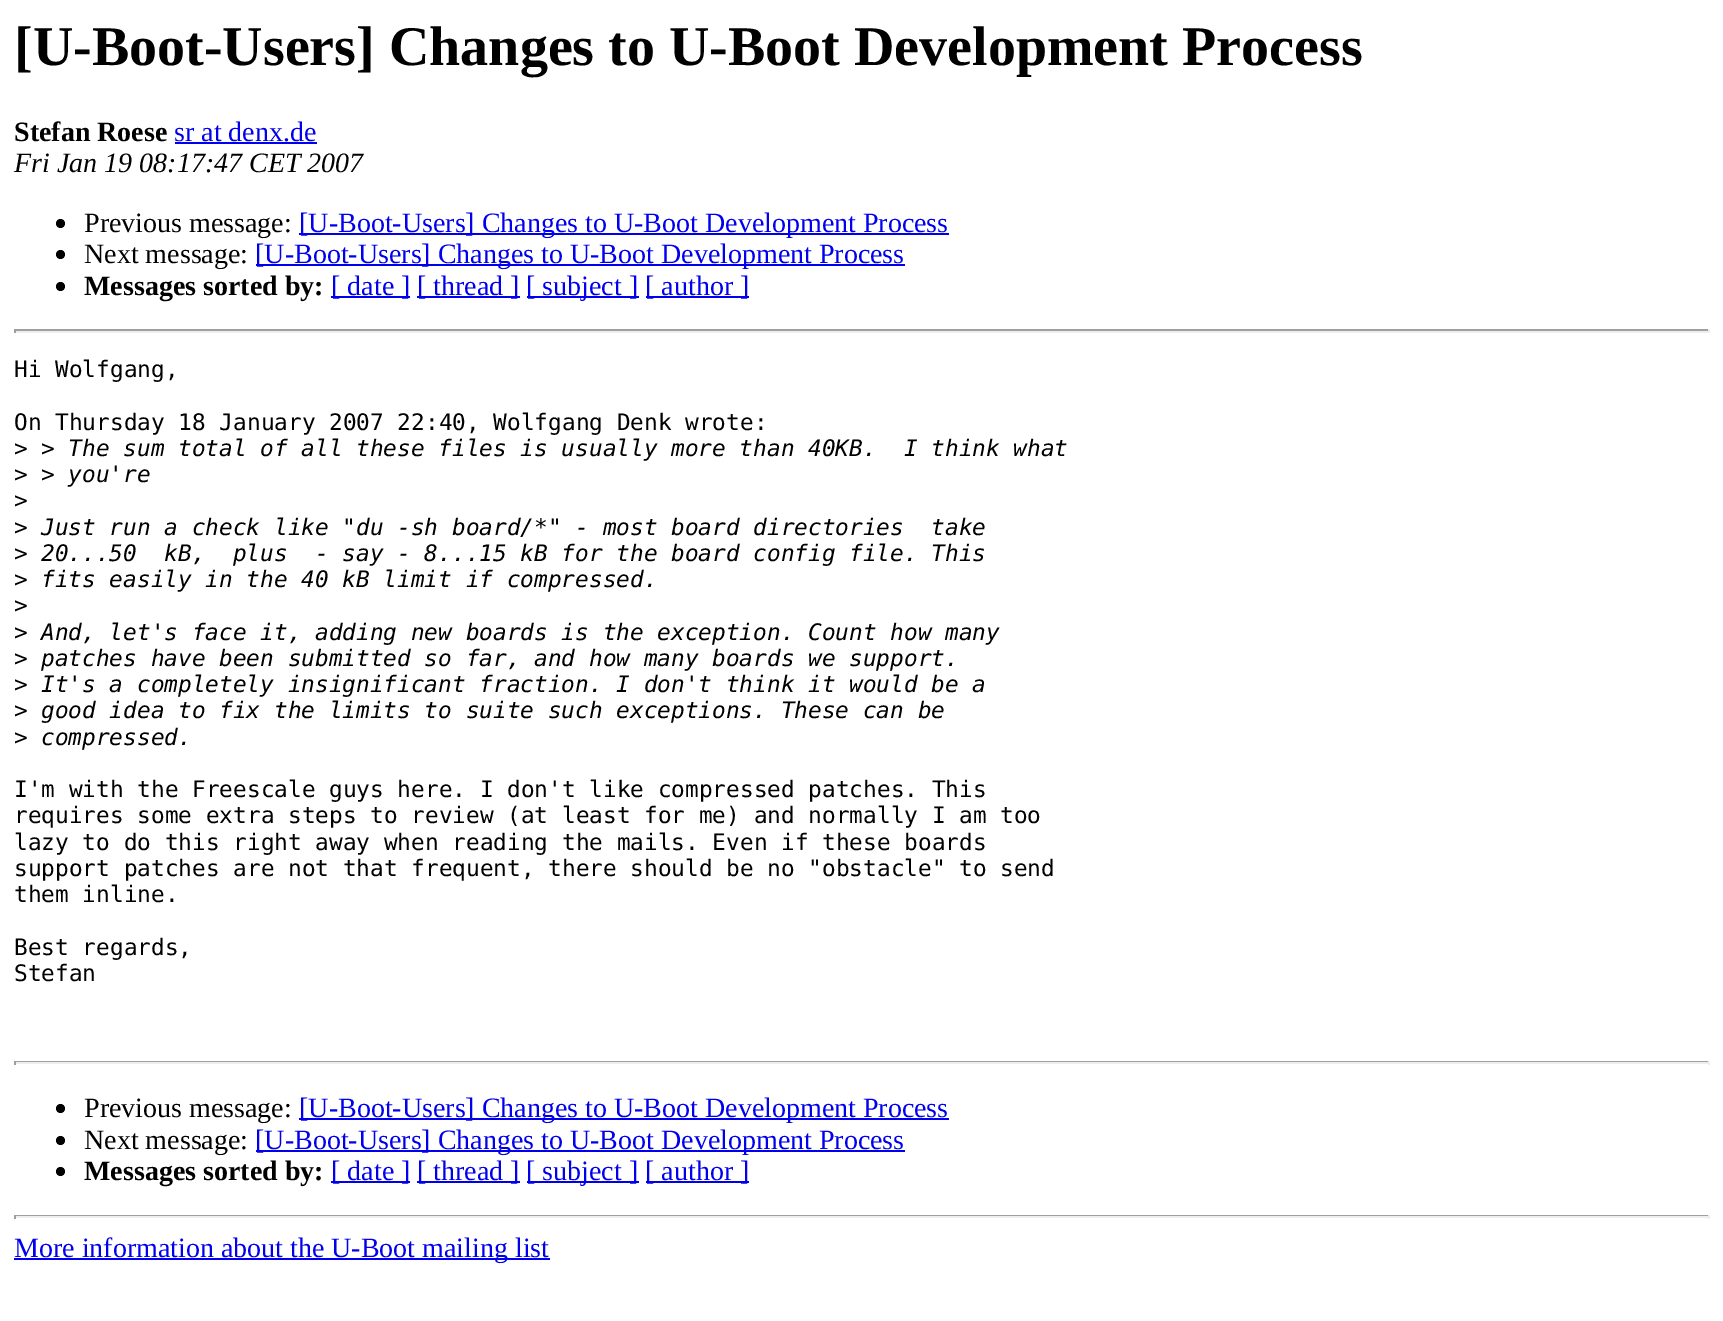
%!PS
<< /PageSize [1723 1321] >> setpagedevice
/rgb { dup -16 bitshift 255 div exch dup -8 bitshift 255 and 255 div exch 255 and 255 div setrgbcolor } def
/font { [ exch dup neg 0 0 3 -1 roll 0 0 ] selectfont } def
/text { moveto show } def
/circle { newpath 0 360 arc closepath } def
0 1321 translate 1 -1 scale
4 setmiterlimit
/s1 { /LiberationSerif-Bold 56 font 16#000000 rgb } def
/s2 { /LiberationSerif-Bold 28 font 16#000000 rgb } def
/s3 { /LiberationSerif-Regular 28 font 16#0000EE rgb } def
/s4 { /LiberationSerif-Italic 28 font 16#000000 rgb } def
/s5 { /LiberationSerif-Regular 28 font 16#000000 rgb } def
/s6 { /DejaVuSansMono-Regular 22.75 font 16#000000 rgb } def
/s7 { /DejaVuSansMono-Italic 22.75 font 16#000000 rgb } def
16#FFFFFF rgb
0 0 1723 1321 rectfill
s1
([U-Boot-Users] Changes to U-Boot Development Process) 14 65 text
s2
(Stefan Roese) 14 141 text
s3
(sr at denx.de) 174 141 text
175 142 142 2 rectfill
s4
(Fri Jan 19 08:17:47 CET 2007) 14 172 text
60.5 223.5 4.5 circle fill
s5
(Previous message:) 84 232 text
16#0000EE rgb
299 233 650 2 rectfill
([U-Boot-Users] Changes to U-Boot Development Process) 299 232 text
16#000000 rgb
60.5 254.5 4.5 circle fill
(Next message:) 84 263 text
16#0000EE rgb
256 264 649 2 rectfill
([U-Boot-Users] Changes to U-Boot Development Process) 255 263 text
16#000000 rgb
60.5 286.5 4.5 circle fill
s2
(Messages sorted by:) 84 295 text
16#0000EE rgb
331 296 79 2 rectfill
s3
([ date ]) 331 295 text
417 296 103 2 rectfill
([ thread ]) 417 295 text
527 296 112 2 rectfill
([ subject ]) 526 295 text
646 296 103 2 rectfill
([ author ]) 645 295 text
16#9F9F9F rgb
14 329 1696 2 rectfill
16#EEEEEE rgb
1708 329 2 4 rectfill
14 331 1696 2 rectfill
16#9F9F9F rgb
14 329 2 4 rectfill
s6
(Hi Wolfgang,) 14 377 text
(On Thursday 18 January 2007 22:40, Wolfgang Denk wrote:) 14 430 text
(>) 14 456 text
s7
(> The sum total of all these files is usually more than 40KB.  I think what) 41 456 text
s6
(>) 14 482 text
s7
(> you're) 41 482 text
s6
(>) 14 508 text
(>) 14 535 text
s7
(Just run a check like "du -sh board/*" - most board directories  take) 41 535 text
s6
(>) 14 561 text
s7
(20...50  kB,  plus  - say - 8...15 kB for the board config file. This) 41 561 text
s6
(>) 14 587 text
s7
(fits easily in the 40 kB limit if compressed.) 41 587 text
s6
(>) 14 613 text
(>) 14 640 text
s7
(And, let's face it, adding new boards is the exception. Count how many) 41 640 text
s6
(>) 14 666 text
s7
(patches have been submitted so far, and how many boards we support.) 41 666 text
s6
(>) 14 692 text
s7
(It's a completely insignificant fraction. I don't think it would be a) 41 692 text
s6
(>) 14 718 text
s7
(good idea to fix the limits to suite such exceptions. These can be) 41 718 text
s6
(>) 14 745 text
s7
(compressed.) 41 745 text
s6
(I'm with the Freescale guys here. I don't like compressed patches. This) 14 797 text
(requires some extra steps to review \(at least for me\) and normally I am too) 14 823 text
(lazy to do this right away when reading the mails. Even if these boards) 14 850 text
(support patches are not that frequent, there should be no "obstacle" to send) 14 876 text
(them inline.) 14 902 text
(Best regards,) 14 955 text
(Stefan) 14 981 text
16#9F9F9F rgb
14 1061 1696 1 rectfill
16#EEEEEE rgb
1708 1061 2 4 rectfill
14 1062 1696 2 rectfill
16#9F9F9F rgb
14 1061 2 4 rectfill
16#000000 rgb
60.5 1108.5 4.5 circle fill
s5
(Previous message:) 84 1117 text
16#0000EE rgb
299 1118 650 2 rectfill
([U-Boot-Users] Changes to U-Boot Development Process) 299 1117 text
16#000000 rgb
60.5 1140.5 4.5 circle fill
(Next message:) 84 1149 text
16#0000EE rgb
256 1150 649 2 rectfill
([U-Boot-Users] Changes to U-Boot Development Process) 255 1149 text
16#000000 rgb
60.5 1171.5 4.5 circle fill
s2
(Messages sorted by:) 84 1180 text
16#0000EE rgb
331 1181 79 2 rectfill
s3
([ date ]) 331 1180 text
417 1181 103 2 rectfill
([ thread ]) 417 1180 text
527 1181 112 2 rectfill
([ subject ]) 526 1180 text
646 1181 103 2 rectfill
([ author ]) 645 1180 text
16#9F9F9F rgb
14 1215 1696 1 rectfill
16#EEEEEE rgb
1708 1215 2 4 rectfill
14 1216 1696 2 rectfill
16#9F9F9F rgb
14 1215 2 4 rectfill
16#0000EE rgb
14 1258 536 2 rectfill
(More information about the U-Boot mailing list) 14 1257 text
showpage
